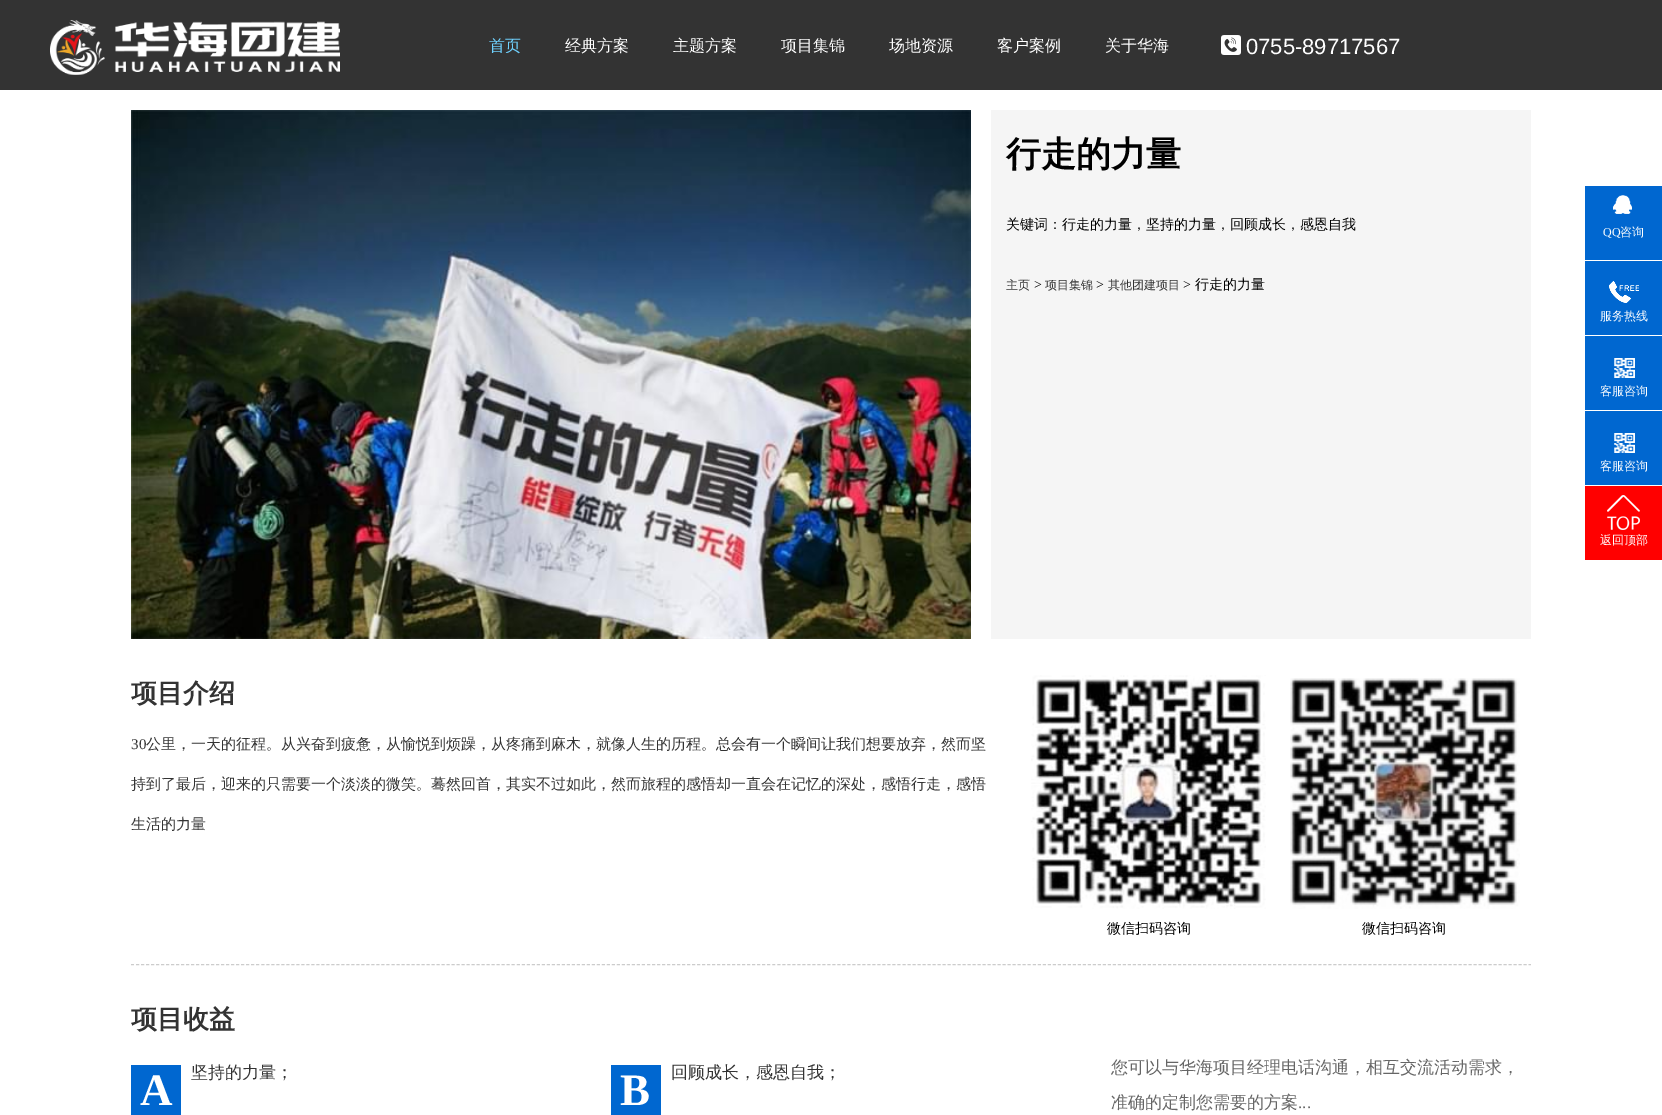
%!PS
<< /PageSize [1662 1115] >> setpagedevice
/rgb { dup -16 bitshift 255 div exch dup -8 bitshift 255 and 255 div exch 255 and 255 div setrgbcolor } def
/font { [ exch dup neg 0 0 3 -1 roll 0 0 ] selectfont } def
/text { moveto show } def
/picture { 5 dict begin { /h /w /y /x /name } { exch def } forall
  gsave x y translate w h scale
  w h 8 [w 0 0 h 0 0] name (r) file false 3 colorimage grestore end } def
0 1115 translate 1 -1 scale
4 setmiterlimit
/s1 { /WenQuanYiZenHei-Medium 16 font 16#6FD2FF rgb } def
/s2 { /WenQuanYiZenHei-Medium 16 font 16#FFFFFF rgb } def
/s3 { /LiberationSans-Regular 22 font 16#FFFFFF rgb } def
/s4 { /WenQuanYiZenHei-Bold 35 font 16#000000 rgb } def
/s5 { /WenQuanYiZenHei-Medium 14 font 16#000000 rgb } def
/s6 { /WenQuanYiZenHei-Medium 12 font 16#333333 rgb } def
/s7 { /LiberationSerif-Regular 14 font 16#000000 rgb } def
/s8 { /LiberationSerif-Regular 12 font 16#FFFFFF rgb } def
/s9 { /WenQuanYiZenHei-Medium 12 font 16#FFFFFF rgb } def
/s10 { /WenQuanYiZenHei-Bold 26 font 16#333333 rgb } def
/s11 { /LiberationSerif-Regular 15 font 16#333333 rgb } def
/s12 { /WenQuanYiZenHei-Medium 15 font 16#333333 rgb } def
/s13 { /WenQuanYiZenHei-Medium 17 font 16#333333 rgb } def
/s14 { /LiberationSerif-Bold 45 font 16#FFFFFF rgb } def
/s15 { /WenQuanYiZenHei-Medium 17 font 16#666666 rgb } def
/s16 { /LiberationSerif-Regular 17 font 16#666666 rgb } def
16#FFFFFF rgb
0 0 1662 1115 rectfill
16#333333 rgb
0 0 1662 90 rectfill
(pic1.raw) 50 20 290 55 picture
s1
(首页) 489 51 text
s2
(经典方案) 565 51 text
(主题方案) 673 51 text
(项目集锦) 781 51 text
(场地资源) 889 51 text
(客户案例) 997 51 text
(关于华海) 1105 51 text
(pic2.raw) 1221 35 20 20 picture
s3
(0755-89717567) 1246 54 text
(pic3.raw) 131 110 840 529 picture
16#F5F5F5 rgb
991 110 540 529 rectfill
s4
(行走的力量) 1006 166 text
s5
(关键词：行走的力量，坚持的力量，回顾成长，感恩自我) 1006 229 text
s6
(主页) 1006 289 text
s7
(>) 1034 289 text
s6
(项目集锦) 1045 289 text
s7
(>) 1096 289 text
s6
(其他团建项目) 1108 289 text
s7
(>) 1183 289 text
s5
(行走的力量) 1195 289 text
16#0067D0 rgb
1585 186 77 74 rectfill
(pic4.raw) 1613 195 19 19 picture
s8
(QQ) 1603 236 text
s9
(咨询) 1620 236 text
16#0067D0 rgb
1585 261 77 74 rectfill
(pic5.raw) 1609 281 30 22 picture
s9
(服务热线) 1600 320 text
16#0067D0 rgb
1585 336 77 74 rectfill
(pic6.raw) 1614 358 21 20 picture
s9
(客服咨询) 1600 395 text
16#0067D0 rgb
1585 411 77 74 rectfill
(pic6.raw) 1614 433 21 20 picture
s9
(客服咨询) 1600 470 text
16#FF0000 rgb
1585 486 77 74 rectfill
(pic7.raw) 1607 495 33 35 picture
s9
(返回顶部) 1600 544 text
s10
(项目介绍) 131 702 text
s11
(30) 131 749 text
s12
(公里，一天的征程。从兴奋到疲惫，从愉悦到烦躁，从疼痛到麻木，就像人生的历程。总会有一个瞬间让我们想要放弃，然而坚) 146 749 text
(持到了最后，迎来的只需要一个淡淡的微笑。蓦然回首，其实不过如此，然而旅程的感悟却一直会在记忆的深处，感悟行走，感悟) 131 789 text
(生活的力量) 131 829 text
(pic8.raw) 1031 675 235 234 picture
s5
(微信扫码咨询) 1107 933 text
(pic9.raw) 1290 678 230 231 picture
(微信扫码咨询) 1362 933 text
16#CCCCCC rgb
[3 2.01] 0 setdash
131 964.5 moveto 1531 964.5 lineto stroke
s10
(项目收益) 131 1028 text
(pic10.raw) 131 1065 50 50 picture
s13
(坚持的力量；) 191 1078 text
s14
(A) 140 1105 text
(pic10.raw) 611 1065 50 50 picture
s13
(回顾成长，感恩自我；) 671 1078 text
s14
(B) 620 1105 text
s15
(您可以与华海项目经理电话沟通，相互交流活动需求，) 1111 1073 text
(准确的定制您需要的方案) 1111 1108 text
s16
(...) 1298 1108 text
showpage
